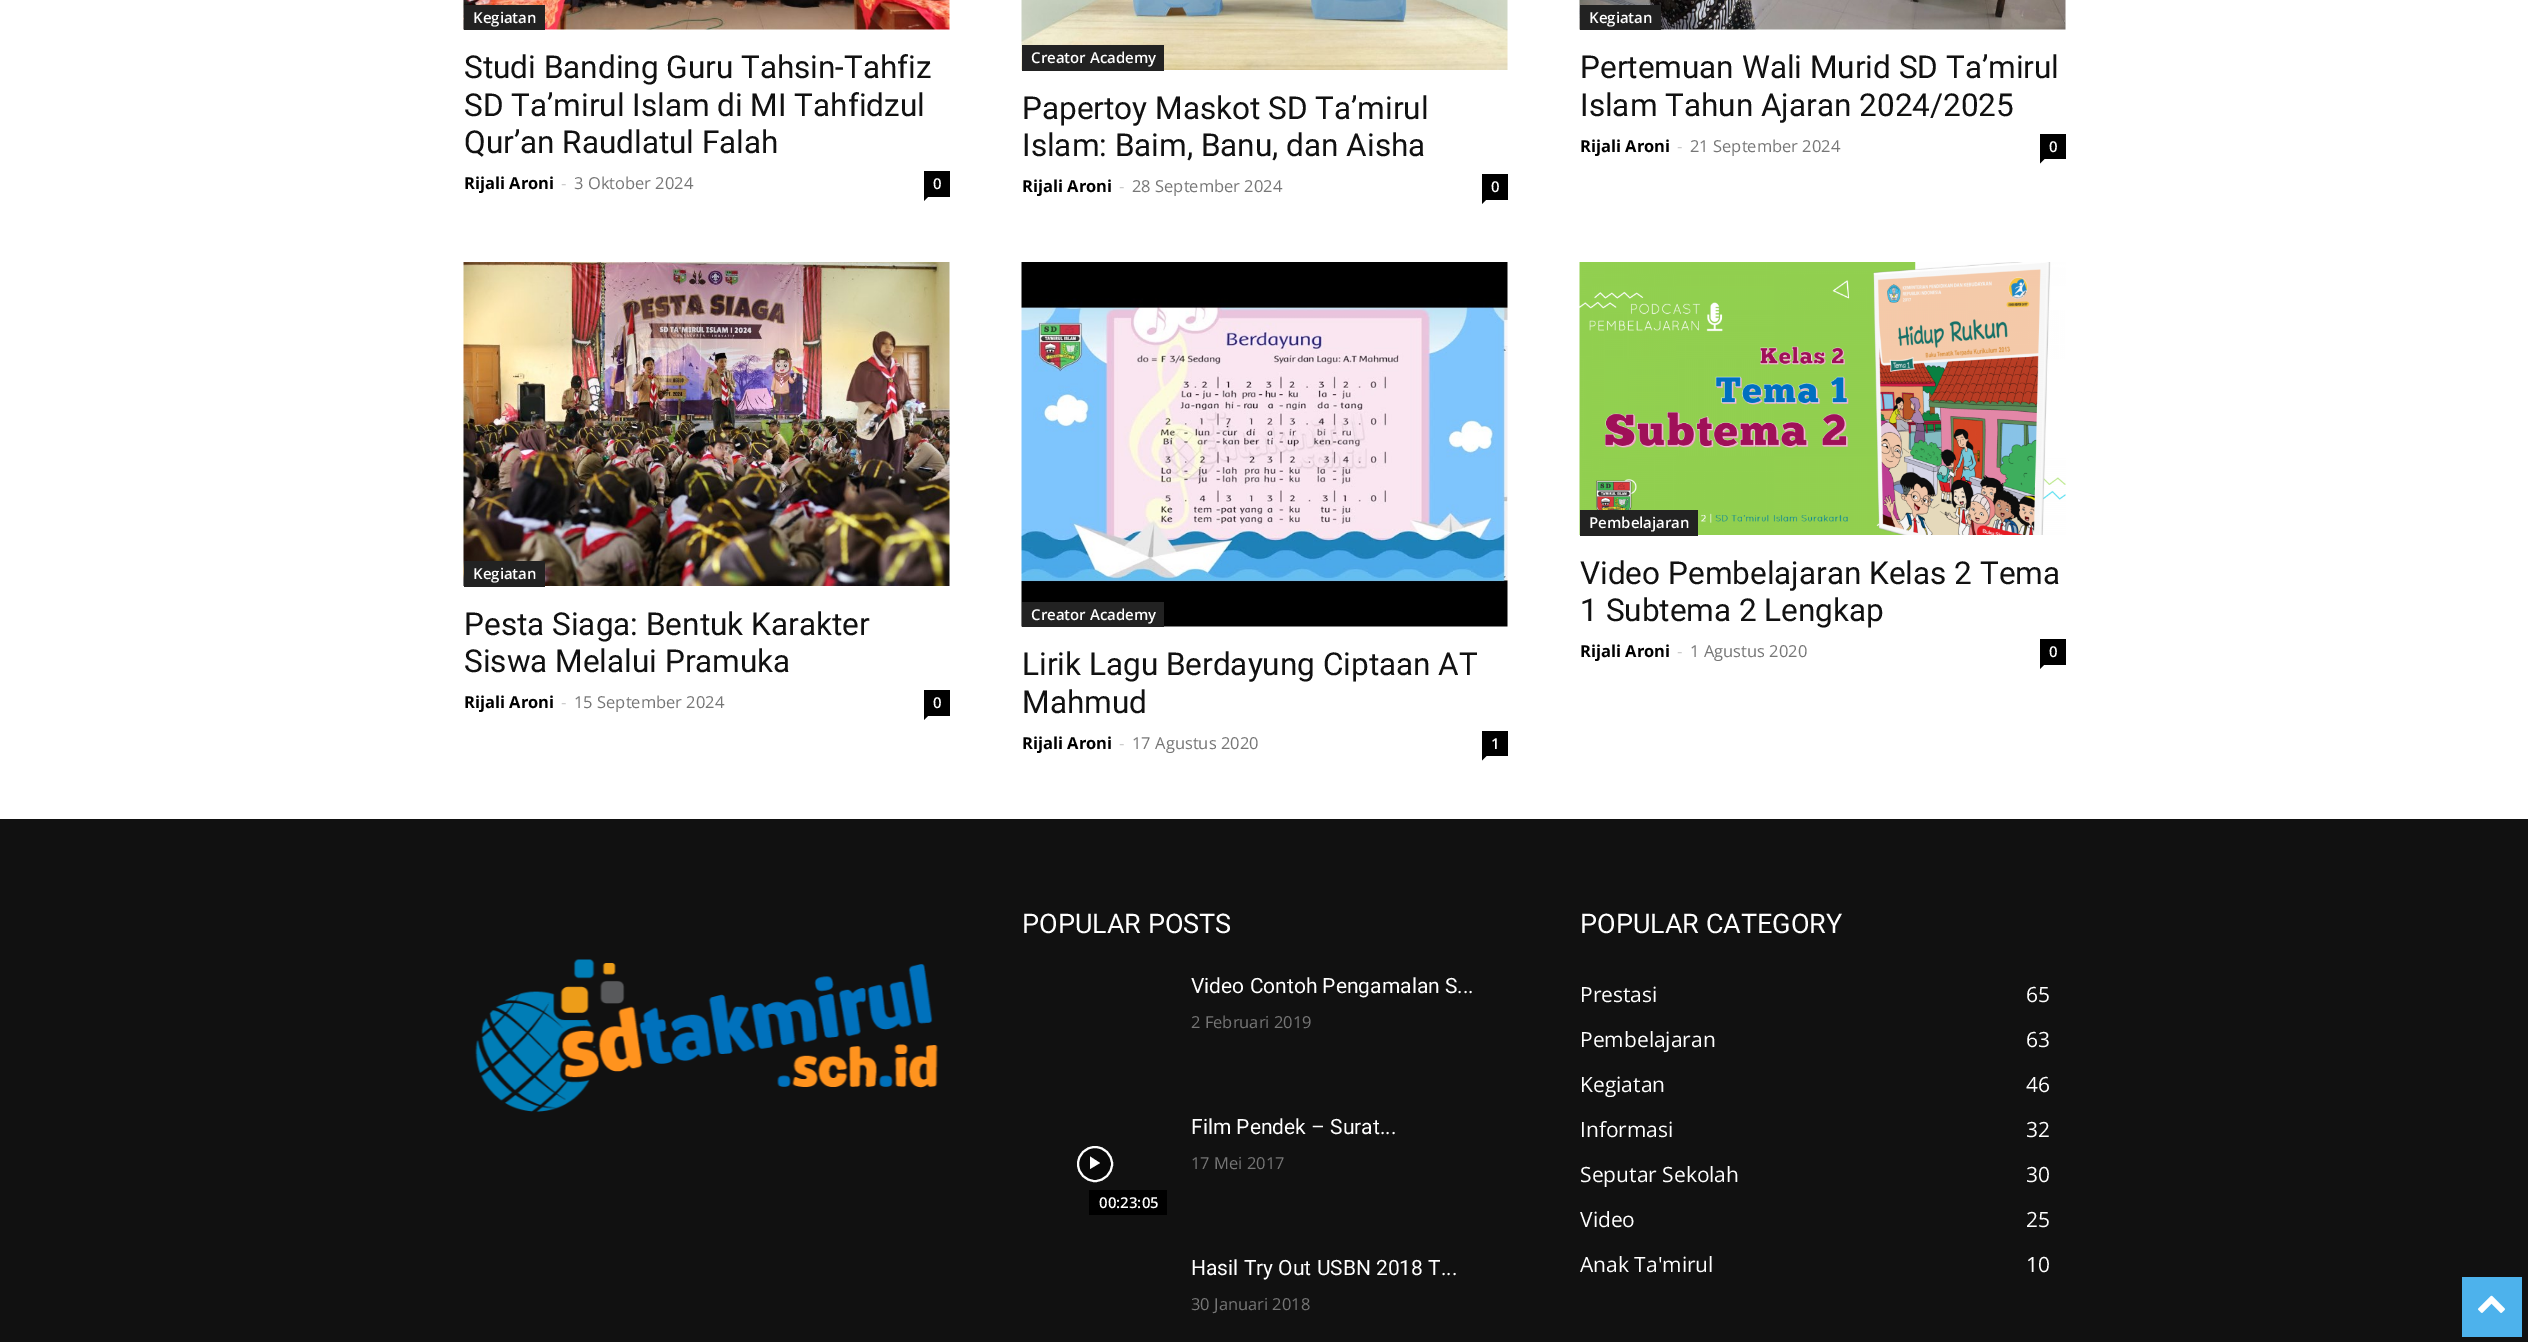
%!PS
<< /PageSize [2528 1342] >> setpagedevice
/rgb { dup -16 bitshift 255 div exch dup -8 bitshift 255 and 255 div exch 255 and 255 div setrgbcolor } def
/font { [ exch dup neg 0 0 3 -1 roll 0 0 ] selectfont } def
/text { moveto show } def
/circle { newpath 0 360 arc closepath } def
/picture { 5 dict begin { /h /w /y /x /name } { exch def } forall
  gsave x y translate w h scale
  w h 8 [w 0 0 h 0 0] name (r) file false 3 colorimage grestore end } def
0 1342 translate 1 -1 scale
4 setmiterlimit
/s1 { /OpenSans-SemiBold 15 font 16#FFFFFF rgb } def
/s2 { /Roboto-Regular 31.5 font 16#111111 rgb } def
/s3 { /OpenSans-Bold 16.5 font 16#000000 rgb } def
/s4 { /OpenSans-Regular 16.5 font 16#CCCCCC rgb } def
/s5 { /OpenSans-Regular 16.5 font 16#767676 rgb } def
/s6 { /Roboto-Regular 27 font 16#FFFFFF rgb } def
/s7 { /Roboto-Regular 21 font 16#FFFFFF rgb } def
/s8 { /OpenSans-Regular 21 font 16#FFFFFF rgb } def
16#FFFFFF rgb
0 0 2528 1342 rectfill
(pic1.raw) 463 0 487 30 picture
16#222222 rgb
464 5 81 25 rectfill
s1
(Kegiatan) 473 23 text
s2
(Studi Banding Guru Tahsin-Tahfiz) 464 78 text
(SD Ta’mirul Islam di MI Tahfidzul) 464 116 text
(Qur’an Raudlatul Falah) 464 153 text
s3
(Rijali Aroni) 464 189 text
s4
(-) 561 189 text
s5
(3 Oktober 2024) 574 189 text
16#000000 rgb
924 171 26 26 rectfill
s1
(0) 933 189 text
16#000000 rgb
924 196.5 moveto 928.5 196.5 lineto 924 201 lineto closepath fill
(pic2.raw) 1021 0 487 70 picture
16#222222 rgb
1022 45 142 26 rectfill
s1
(Creator Academy) 1031 63 text
s2
(Papertoy Maskot SD Ta’mirul) 1022 119 text
(Islam: Baim, Banu, dan Aisha) 1022 156 text
s3
(Rijali Aroni) 1022 192 text
s4
(-) 1119 192 text
s5
(28 September 2024) 1132 192 text
16#000000 rgb
1482 174 26 26 rectfill
s1
(0) 1491 192 text
16#000000 rgb
1482 199.5 moveto 1486.5 199.5 lineto 1482 204 lineto closepath fill
(pic3.raw) 1579 0 487 30 picture
16#222222 rgb
1580 5 81 25 rectfill
s1
(Kegiatan) 1589 23 text
s2
(Pertemuan Wali Murid SD Ta’mirul) 1580 78 text
(Islam Tahun Ajaran 2024/2025) 1580 116 text
s3
(Rijali Aroni) 1580 152 text
s4
(-) 1677 152 text
s5
(21 September 2024) 1690 152 text
16#000000 rgb
2040 134 26 25 rectfill
s1
(0) 2049 152 text
16#000000 rgb
2040 159 moveto 2044.5 159 lineto 2040 163.5 lineto closepath fill
(pic4.raw) 463 262 487 324 picture
16#222222 rgb
464 561 81 26 rectfill
s1
(Kegiatan) 473 579 text
s2
(Pesta Siaga: Bentuk Karakter) 464 635 text
(Siswa Melalui Pramuka) 464 672 text
s3
(Rijali Aroni) 464 708 text
s4
(-) 561 708 text
s5
(15 September 2024) 574 708 text
16#000000 rgb
924 690 26 26 rectfill
s1
(0) 933 708 text
16#000000 rgb
924 715.5 moveto 928.5 715.5 lineto 924 720 lineto closepath fill
(pic5.raw) 1021 262 487 365 picture
16#222222 rgb
1022 602 142 25 rectfill
s1
(Creator Academy) 1031 620 text
s2
(Lirik Lagu Berdayung Ciptaan AT) 1022 675 text
(Mahmud) 1022 713 text
s3
(Rijali Aroni) 1022 749 text
s4
(-) 1119 749 text
s5
(17 Agustus 2020) 1132 749 text
16#000000 rgb
1482 731 26 25 rectfill
s1
(1) 1491 749 text
16#000000 rgb
1482 756 moveto 1486.5 756 lineto 1482 760.5 lineto closepath fill
(pic6.raw) 1579 262 487 273 picture
16#222222 rgb
1580 510 118 26 rectfill
s1
(Pembelajaran) 1589 528 text
s2
(Video Pembelajaran Kelas 2 Tema) 1580 584 text
(1 Subtema 2 Lengkap) 1580 621 text
s3
(Rijali Aroni) 1580 657 text
s4
(-) 1677 657 text
s5
(1 Agustus 2020) 1690 657 text
16#000000 rgb
2040 639 26 26 rectfill
s1
(0) 2049 657 text
16#000000 rgb
2040 664.5 moveto 2044.5 664.5 lineto 2040 669 lineto closepath fill
16#111111 rgb
0 819 2528 523 rectfill
(pic7.raw) 475 959 463 153 picture
s6
(POPULAR POSTS) 1022 933 text
s7
(Video Contoh Pengamalan S...) 1191 993 text
s5
(2 Februari 2019) 1191 1028 text
s7
(Film Pendek – Surat...) 1191 1134 text
s5
(17 Mei 2017) 1191 1169 text
16#090909 rgb
1095 1164 17 circle gsave fill grestore
16#FFFFFF rgb
2 setlinewidth
stroke
1090 1156.5 moveto 1090 1169 lineto 1100 1163 lineto closepath fill
16#000000 rgb
1089 1190 78 25 rectfill
s1
(00:23:05) 1099 1208 text
s7
(Hasil Try Out USBN 2018 T...) 1191 1275 text
s5
(30 Januari 2018) 1191 1310 text
s6
(POPULAR CATEGORY) 1580 933 text
s8
(Prestasi) 1580 1002 text
(65) 2026 1002 text
(Pembelajaran) 1580 1047 text
(63) 2026 1047 text
(Kegiatan) 1580 1092 text
(46) 2026 1092 text
(Informasi) 1580 1137 text
(32) 2026 1137 text
(Seputar Sekolah) 1580 1182 text
(30) 2026 1182 text
(Video) 1580 1227 text
(25) 2026 1227 text
(Anak Ta'mirul) 1580 1272 text
(10) 2026 1272 text
16#4DB2EC rgb
2462 1277 60 60 rectfill
(pic8.raw) 2478 1295 27 18 picture
showpage
